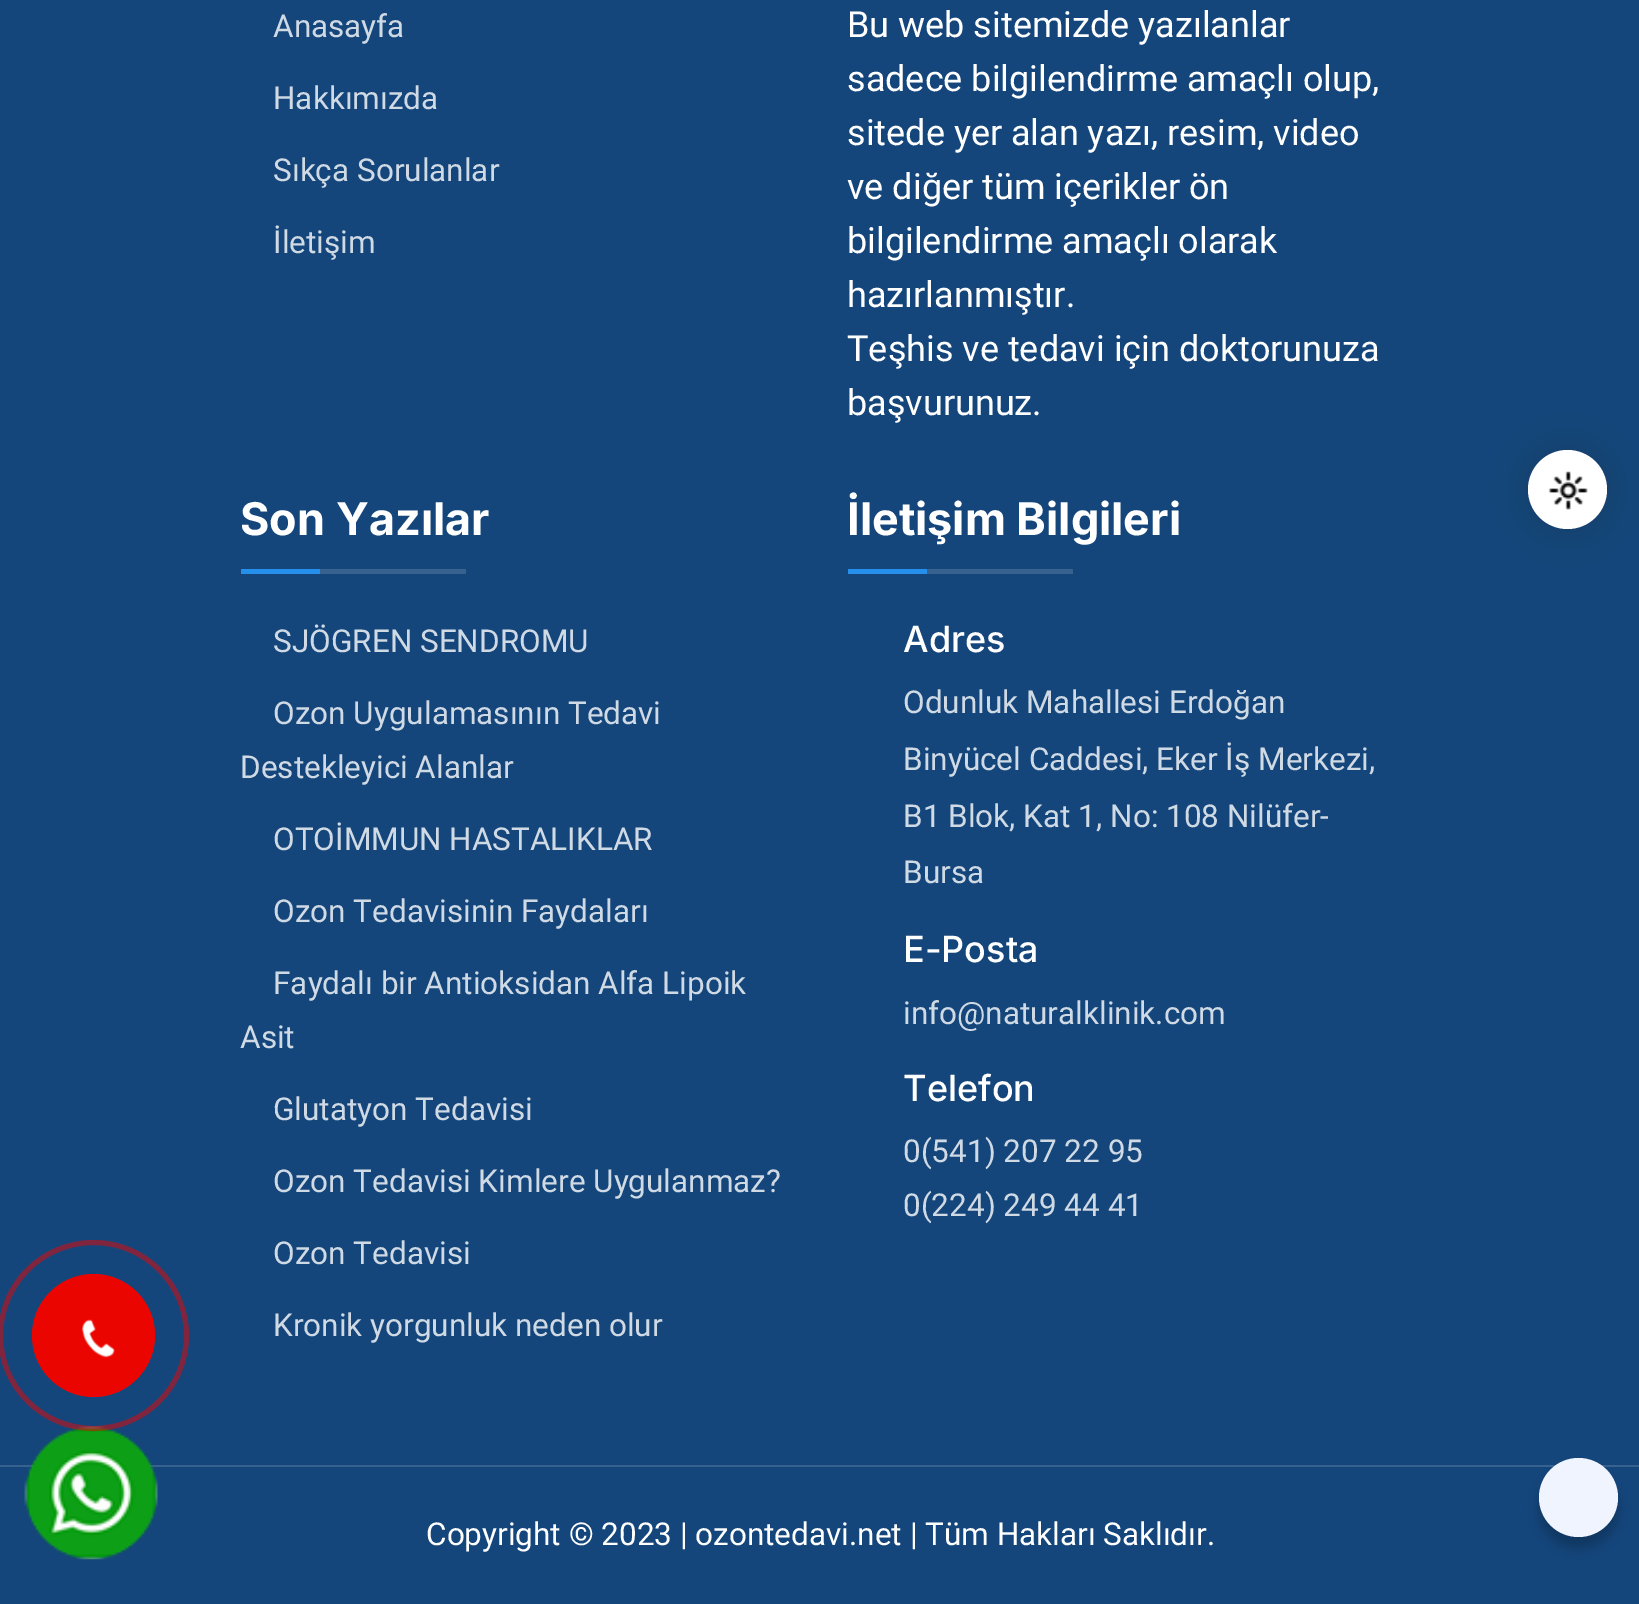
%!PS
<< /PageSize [1639 1604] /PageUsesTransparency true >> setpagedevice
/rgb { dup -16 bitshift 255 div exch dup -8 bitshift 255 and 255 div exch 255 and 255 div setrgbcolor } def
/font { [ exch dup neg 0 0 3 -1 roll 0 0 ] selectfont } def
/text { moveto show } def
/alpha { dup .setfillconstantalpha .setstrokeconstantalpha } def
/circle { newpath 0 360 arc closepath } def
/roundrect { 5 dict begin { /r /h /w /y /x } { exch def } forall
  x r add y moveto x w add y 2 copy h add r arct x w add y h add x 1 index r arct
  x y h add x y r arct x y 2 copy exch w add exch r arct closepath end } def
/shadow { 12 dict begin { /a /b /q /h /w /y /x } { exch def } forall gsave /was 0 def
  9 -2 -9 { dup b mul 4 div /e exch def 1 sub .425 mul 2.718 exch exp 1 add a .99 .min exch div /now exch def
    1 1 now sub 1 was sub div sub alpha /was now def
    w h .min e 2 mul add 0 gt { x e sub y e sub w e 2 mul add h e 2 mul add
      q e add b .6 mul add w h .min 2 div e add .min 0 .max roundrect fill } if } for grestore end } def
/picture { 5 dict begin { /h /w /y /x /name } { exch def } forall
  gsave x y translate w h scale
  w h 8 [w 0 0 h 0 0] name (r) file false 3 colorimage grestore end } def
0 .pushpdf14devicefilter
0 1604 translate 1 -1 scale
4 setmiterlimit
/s1 { /Roboto-Regular 31.5 font 16#D0DAE5 rgb } def
/s2 { /Roboto-Regular 36 font 16#FFFFFF rgb } def
/s3 { /Inter-Bold 45 font 16#FFFFFF rgb } def
/s4 { /Inter-Medium 36 font 16#FFFFFF rgb } def
/s5 { /Roboto-Regular 31.5 font 16#FFFFFF rgb } def
16#14467B rgb
0 0 1639 1604 rectfill
16#37628F rgb
0 1465 1639 2 rectfill
(pic2.raw) 24 1426 134 134 picture
0.5 alpha
16#EB0500 rgb
5 setlinewidth
93.5 1335.5 93 circle stroke
1 alpha
93.5 1335.5 61.5 circle fill
(pic1.raw) 82 1319 33 39 picture
s1
(Anasayfa) 273 37 text
(Hakkımızda) 273 109 text
(Sıkça Sorulanlar) 273 181 text
(İletişim) 273 253 text
s2
(Bu web sitemizde yazılanlar) 847 37 text
(sadece bilgilendirme amaçlı olup,) 847 91 text
(sitede yer alan yazı, resim, video) 847 145 text
(ve diğer tüm içerikler ön) 847 199 text
(bilgilendirme amaçlı olarak) 847 253 text
(hazırlanmıştır.) 847 307 text
(Teşhis ve tedavi için doktorunuza) 847 361 text
(başvurunuz.) 847 415 text
s3
(Son Yazılar) 240 535 text
16#2490EB rgb
241 569 79 5 rectfill
16#37628F rgb
320 569 146 5 rectfill
s1
(SJÖGREN SENDROMU) 273 652 text
(Ozon Uygulamasının Tedavi) 273 724 text
(Destekleyici Alanlar) 240 778 text
(OTOİMMUN HASTALIKLAR) 273 850 text
(Ozon Tedavisinin Faydaları) 273 922 text
(Faydalı bir Antioksidan Alfa Lipoik) 273 994 text
(Asit) 240 1048 text
(Glutatyon Tedavisi) 273 1120 text
(Ozon Tedavisi Kimlere Uygulanmaz?) 273 1192 text
(Ozon Tedavisi) 273 1264 text
(Kronik yorgunluk neden olur) 273 1336 text
s3
(İletişim Bilgileri) 847 535 text
16#2490EB rgb
848 569 79 5 rectfill
16#37628F rgb
927 569 146 5 rectfill
s4
(Adres) 903 652 text
s1
(Odunluk Mahallesi Erdoğan) 903 713 text
(Binyücel Caddesi, Eker İş Merkezi,) 903 770 text
(B1 Blok, Kat 1, No: 108 Nilüfer-) 903 827 text
(Bursa) 903 883 text
s4
(E-Posta) 903 962 text
s1
(info@naturalklinik.com) 903 1024 text
s4
(Telefon) 903 1101 text
s1
(0\(541\) 207 22 95) 903 1162 text
(0\(224\) 249 44 41) 903 1216 text
s5
(Copyright © 2023 | ozontedavi.net | Tüm Hakları Saklıdır.) 426 1545 text
16#202020 rgb
1528 450 79 79 39.5 17 0.24 shadow
16#FFFFFF rgb
1567.5 489.5 39.5 circle fill
(pic3.raw) 1548 471 40 39 picture
16#000000 rgb
1539 1469 79 79 39.5 5.5 0.2 shadow
16#F0F4FF rgb
1578.5 1497.5 39.5 circle fill
.poppdf14devicefilter showpage
